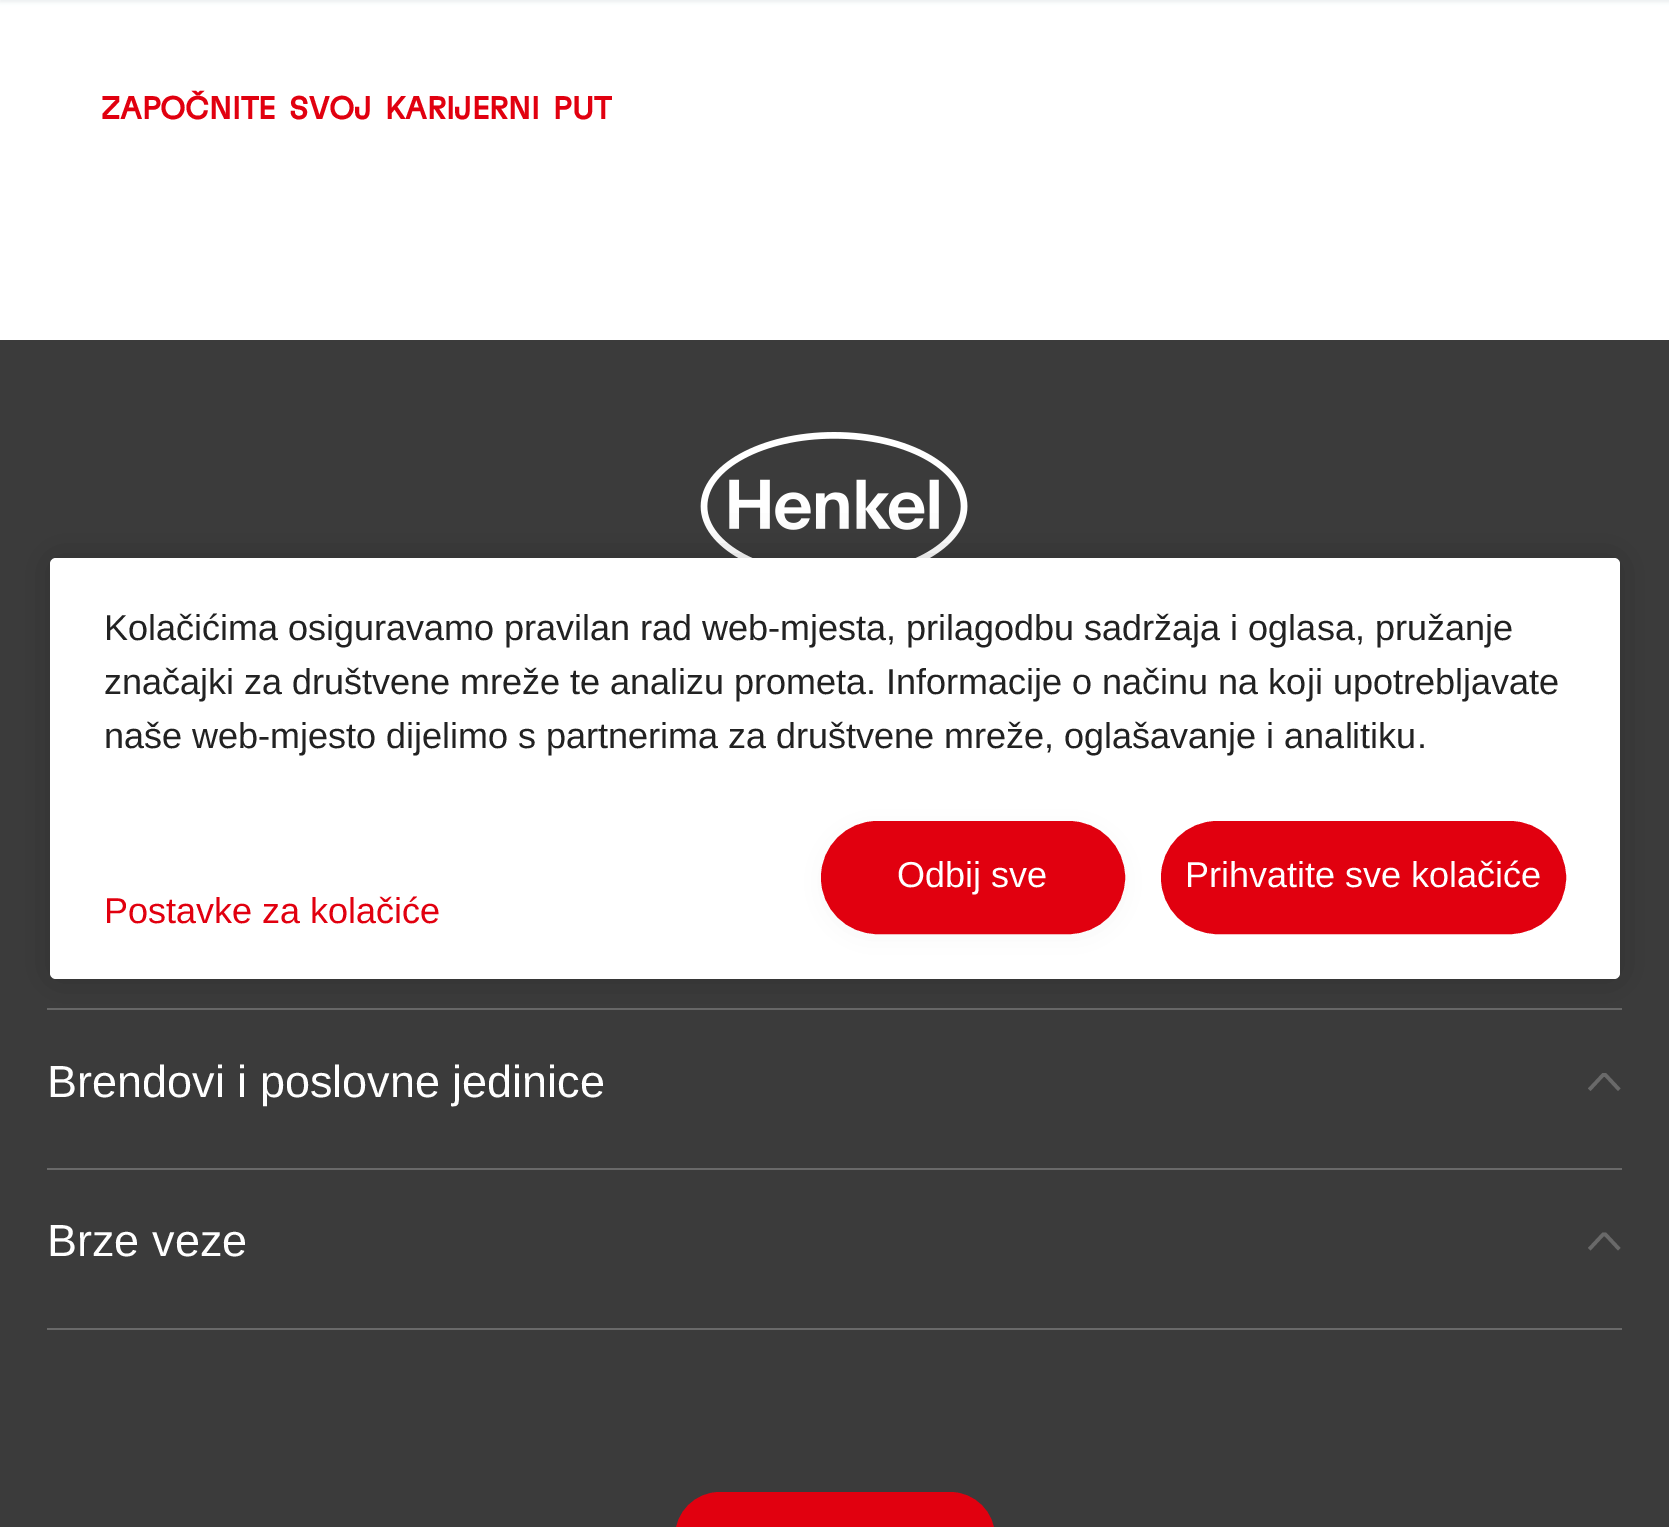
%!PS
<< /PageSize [1669 1527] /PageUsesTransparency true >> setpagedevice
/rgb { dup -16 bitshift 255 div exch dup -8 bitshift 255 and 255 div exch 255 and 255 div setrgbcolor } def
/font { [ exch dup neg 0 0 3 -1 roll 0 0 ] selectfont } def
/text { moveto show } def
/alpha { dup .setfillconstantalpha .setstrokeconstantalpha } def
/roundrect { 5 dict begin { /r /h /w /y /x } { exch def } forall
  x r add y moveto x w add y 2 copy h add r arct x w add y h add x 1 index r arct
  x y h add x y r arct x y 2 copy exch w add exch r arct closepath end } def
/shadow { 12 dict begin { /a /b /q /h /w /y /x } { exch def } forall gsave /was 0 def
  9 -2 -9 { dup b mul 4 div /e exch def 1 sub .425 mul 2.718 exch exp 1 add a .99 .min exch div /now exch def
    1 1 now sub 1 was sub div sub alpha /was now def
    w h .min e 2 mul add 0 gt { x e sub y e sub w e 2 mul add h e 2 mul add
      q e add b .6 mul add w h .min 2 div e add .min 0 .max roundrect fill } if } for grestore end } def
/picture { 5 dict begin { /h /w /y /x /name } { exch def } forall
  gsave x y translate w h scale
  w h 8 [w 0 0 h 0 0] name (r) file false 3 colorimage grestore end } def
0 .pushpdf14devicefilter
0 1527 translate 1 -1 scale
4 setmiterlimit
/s1 { /LiberationSans-Regular 45 font 16#FFFFFF rgb } def
/s2 { /LiberationSans-Regular 36 font 16#222222 rgb } def
/s3 { /LiberationSans-Regular 36 font 16#FFFFFF rgb } def
/s4 { /LiberationSans-Regular 36 font 16#E1000F rgb } def
16#FFFFFF rgb
0 0 1669 1527 rectfill
16#788791 rgb
0 -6 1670 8 0 2 0.15 shadow
/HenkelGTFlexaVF-Bold 31.5 font
16#E1000F rgb
101 119 moveto 5.5 0 32 (ZAPOČNITE SVOJ KARIJERNI PUT) widthshow
16#3B3B3B rgb
0 340 1669 1187 rectfill
(pic1.raw) 700 432 268 126 picture
16#696969 rgb
47 1008 1575 2 rectfill
s1
(Brendovi i poslovne jedinice) 47 1097 text
16#696969 rgb
1620.5 1088.5 moveto 1618 1091 lineto 1605 1077 lineto 1603.5 1077 lineto 1590.5 1091 lineto 1588 1088.5 lineto 1602.5 1073 lineto 1606 1073 lineto closepath fill
47 1168 1575 2 rectfill
s1
(Brze veze) 47 1256 text
16#696969 rgb
1620.5 1248 moveto 1618 1250.5 lineto 1605 1236.5 lineto 1603.5 1236.5 lineto 1590.5 1250.5 lineto 1588 1248 lineto 1602.5 1232.5 lineto 1606 1232.5 lineto closepath fill
47 1328 1575 2 rectfill
16#E1000F rgb
677.5 1494.5 315 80 42.5 roundrect gsave fill grestore
5 setlinewidth
stroke
16#000000 rgb
50 558 1570 421 6 20 0.2 shadow
16#FFFFFF rgb
50 558 1570 421 6 roundrect fill
s2
(Kolačićima osiguravamo pravilan rad web-mjesta, prilagodbu sadržaja i oglasa, pružanje) 104 640 text
(značajki za društvene mreže te analizu prometa. Informacije o načinu na koji upotrebljavate) 104 694 text
(naše web-mjesto dijelimo s partnerima za društvene mreže, oglašavanje i analitiku.) 104 748 text
16#000000 rgb
821 826 304 112 56 13.5 0.04 shadow
16#E1000F rgb
822 822 302 111 55.5 roundrect gsave fill grestore
2 setlinewidth
stroke
s3
(Odbij sve) 897 887 text
16#E1000F rgb
1162 822 403 111 55.5 roundrect gsave fill grestore
stroke
s3
(Prihvatite sve kolačiće) 1185 887 text
s4
(Postavke za kolačiće) 104 923 text
.poppdf14devicefilter showpage
